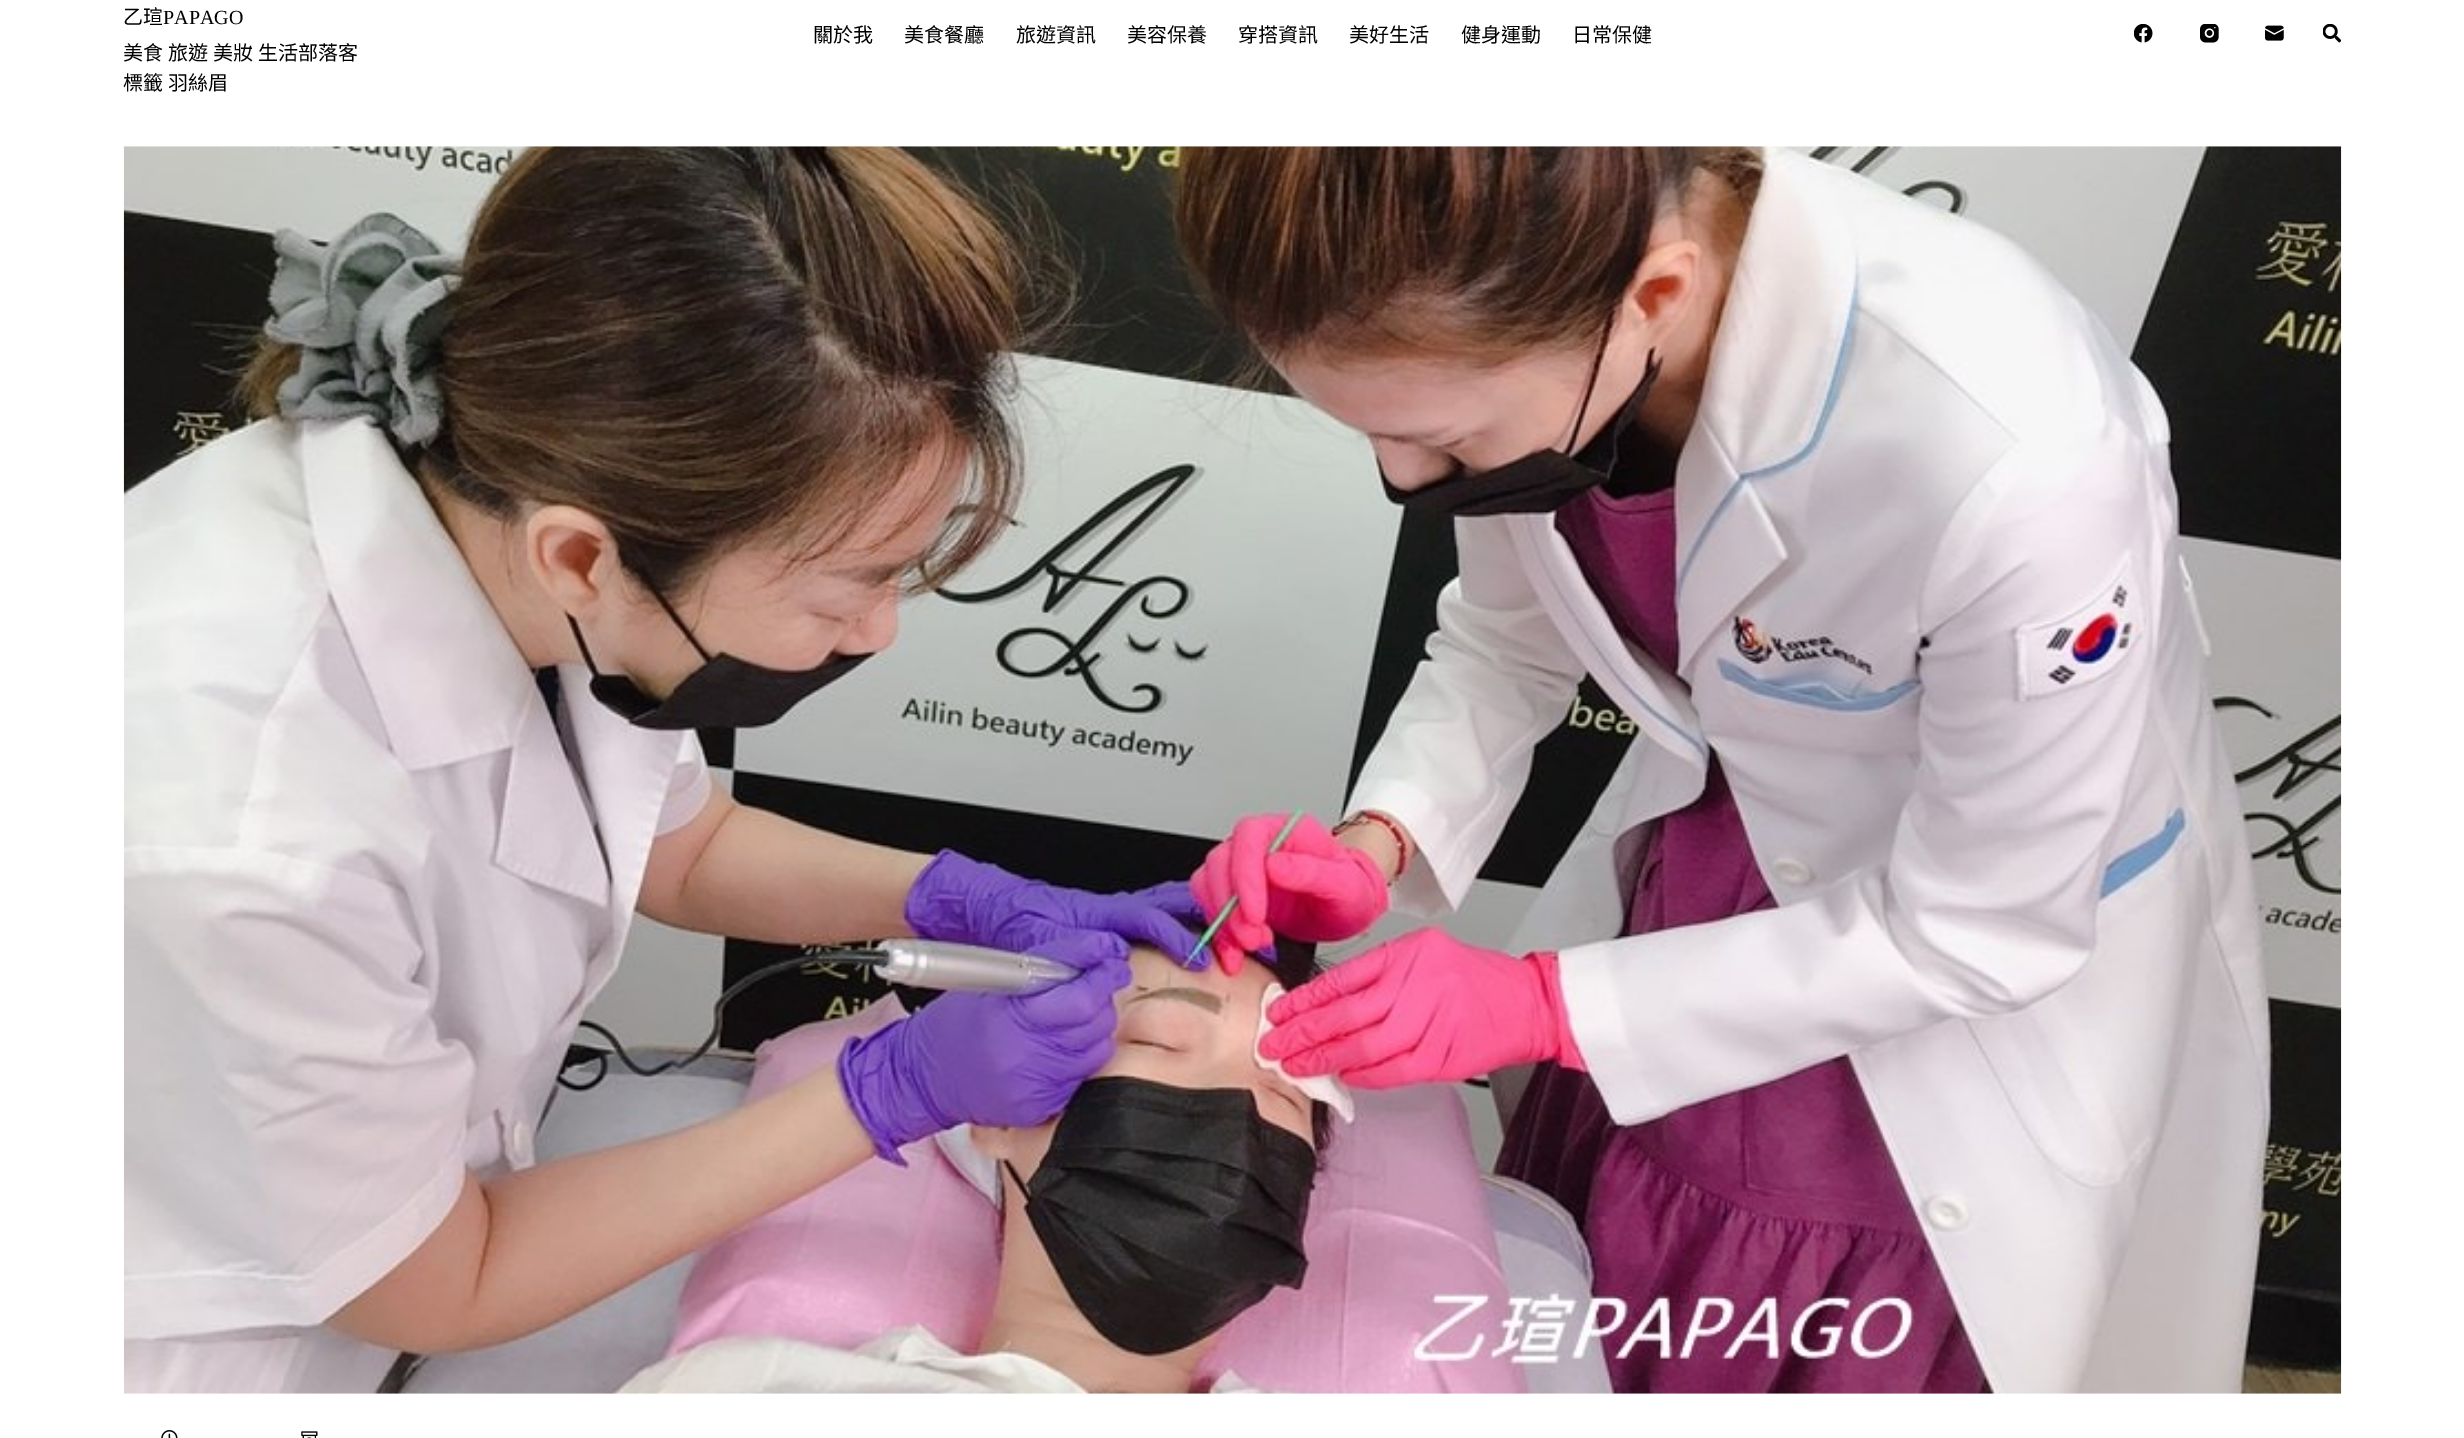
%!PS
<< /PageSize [2464 1438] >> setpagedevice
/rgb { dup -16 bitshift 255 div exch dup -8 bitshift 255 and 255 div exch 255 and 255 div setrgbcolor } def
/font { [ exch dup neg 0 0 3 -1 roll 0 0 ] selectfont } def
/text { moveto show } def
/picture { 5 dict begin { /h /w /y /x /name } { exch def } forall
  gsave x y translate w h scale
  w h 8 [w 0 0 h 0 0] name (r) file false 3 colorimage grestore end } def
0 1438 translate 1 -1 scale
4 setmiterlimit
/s1 { /NotoSansCJKTC-Regular 20 font 16#000000 rgb } def
/s2 { /LiberationSerif-Regular 20 font 16#000000 rgb } def
16#FFFFFF rgb
0 0 2464 1438 rectfill
s1
(乙瑄) 123 24 text
s2
(PAPAGO) 163 24 text
/NotoSansCJKTC-Regular 20 font
123 60 moveto 0.5 0 32 (美食 旅遊 美妝 生活部落客) widthshow
(關於我) 813 42 text
(美食餐廳) 904 42 text
(旅遊資訊) 1016 42 text
(美容保養) 1127 42 text
(穿搭資訊) 1238 42 text
(美好生活) 1349 42 text
(健身運動) 1461 42 text
(日常保健) 1572 42 text
(pic1.raw) 2134 24 19 19 picture
(pic2.raw) 2200 24 19 19 picture
(pic3.raw) 2265 25 19 16 picture
(pic4.raw) 2323 24 18 19 picture
(標籤) 123 90 text
(羽絲眉) 168 90 text
(pic5.raw) 123 146 2219 1248 picture
(pic6.raw) 161 1430 17 8 picture
(pic7.raw) 301 1431 17 7 picture
showpage
